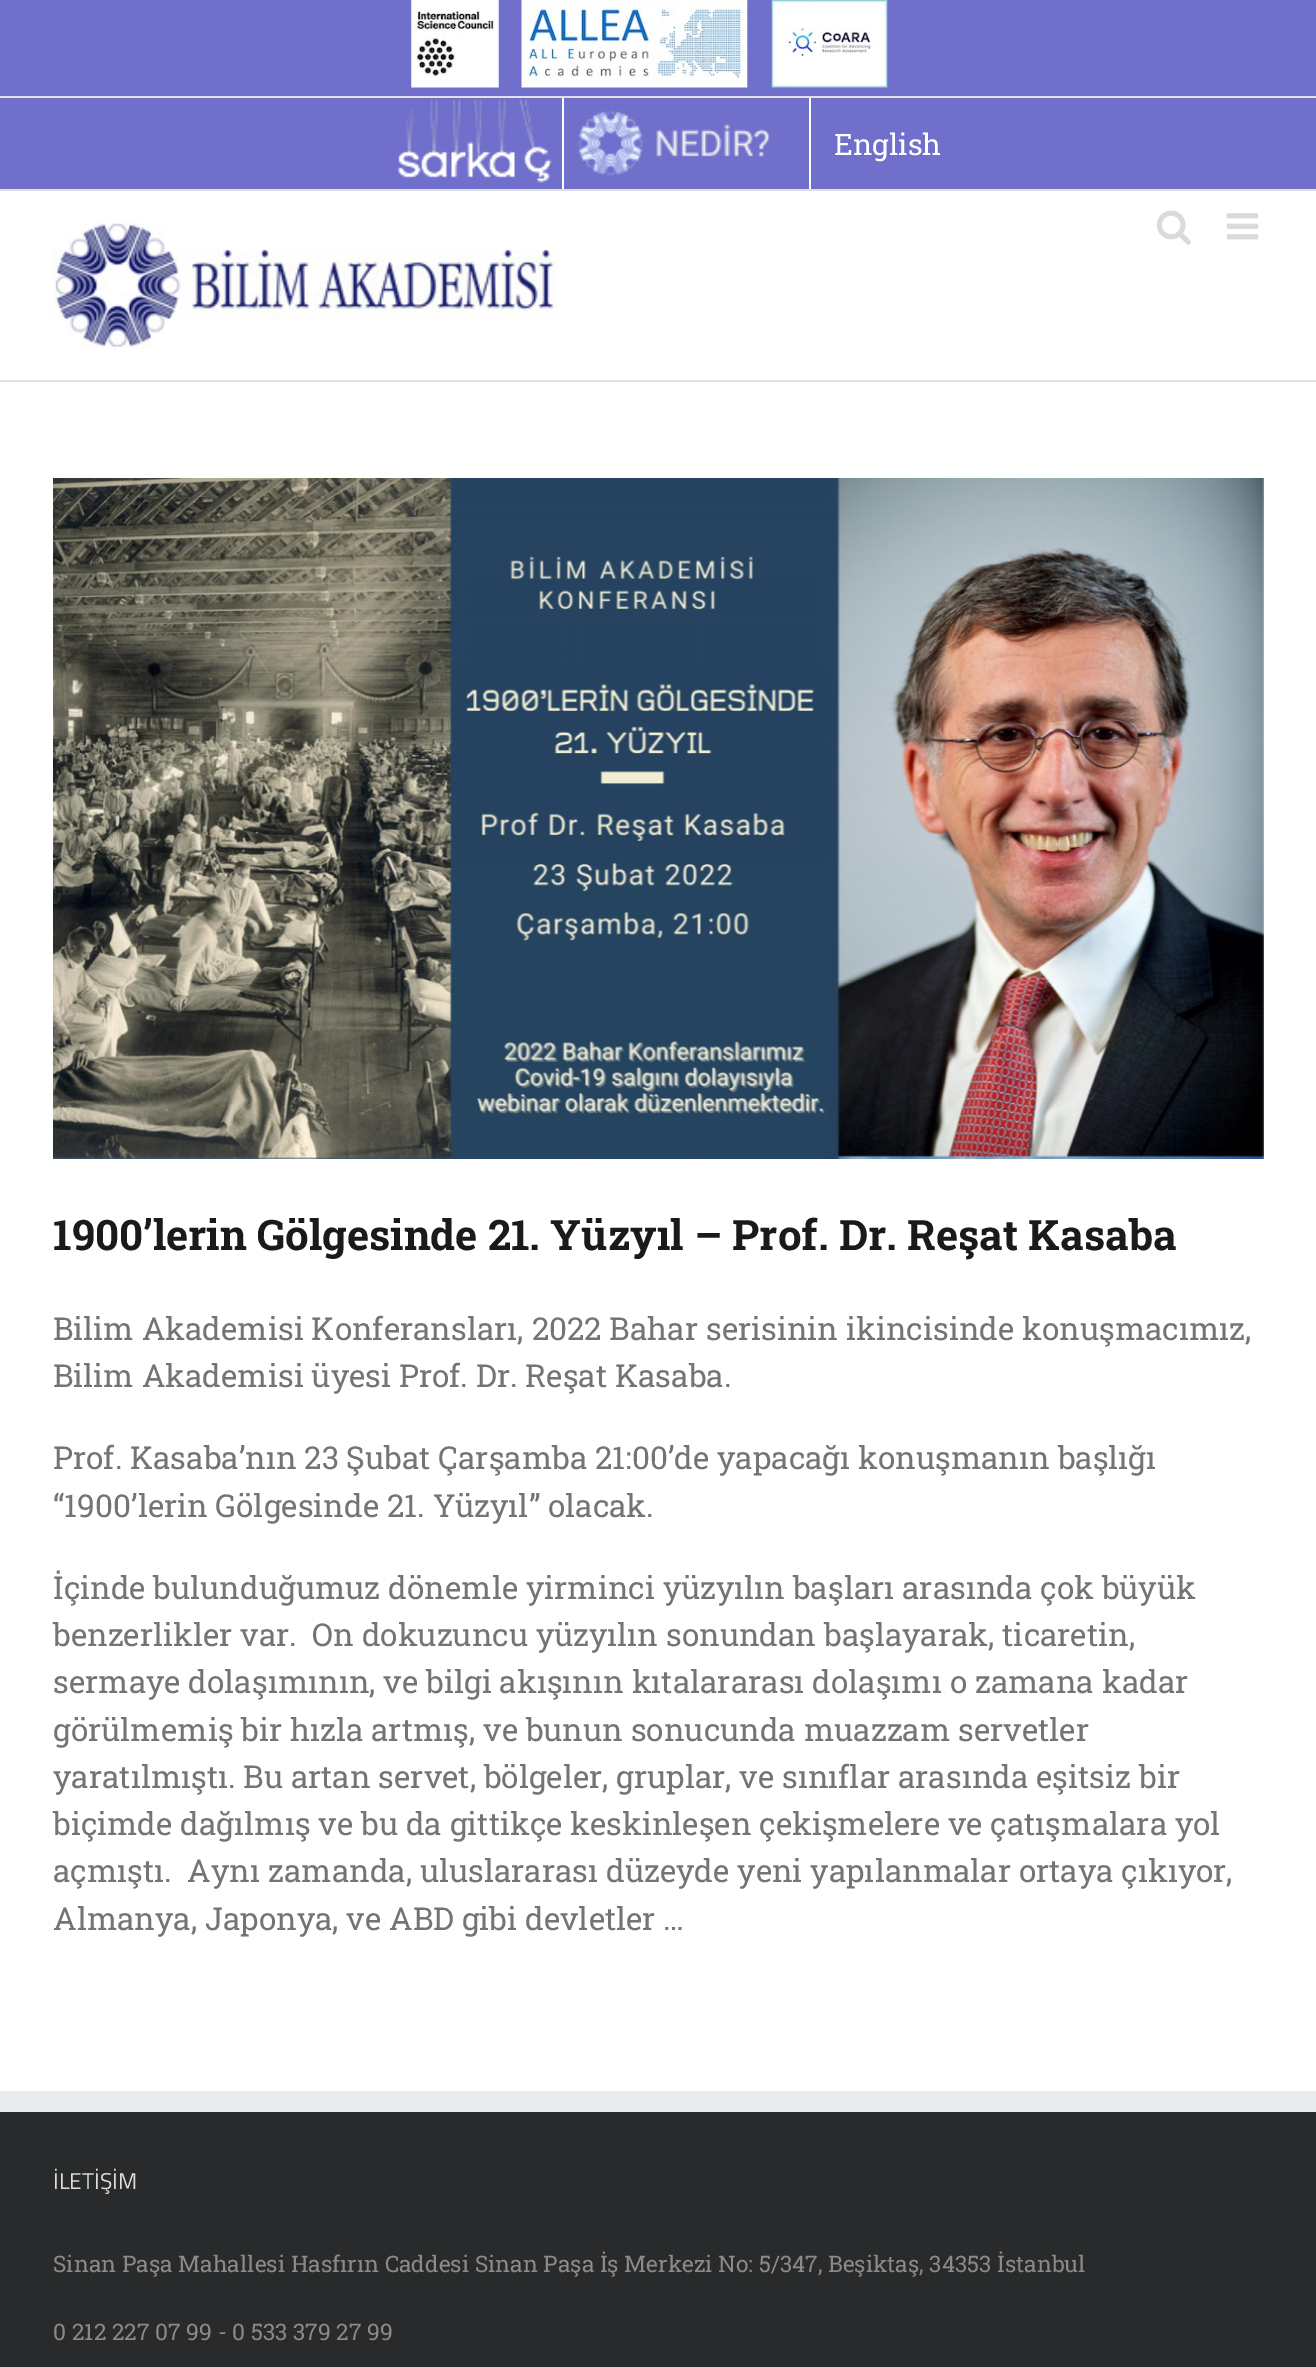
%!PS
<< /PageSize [1316 2367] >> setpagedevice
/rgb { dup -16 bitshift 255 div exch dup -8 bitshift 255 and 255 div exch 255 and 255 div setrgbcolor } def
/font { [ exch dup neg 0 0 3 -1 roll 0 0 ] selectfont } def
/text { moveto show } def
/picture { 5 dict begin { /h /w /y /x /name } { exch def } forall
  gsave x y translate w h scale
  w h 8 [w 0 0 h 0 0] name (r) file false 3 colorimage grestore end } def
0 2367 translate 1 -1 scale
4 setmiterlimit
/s1 { /RobotoSlab-Regular 29.5 font 16#FFFFFF rgb } def
/s2 { /RobotoSlab-Bold 42 font 16#1A1A1A rgb } def
/s3 { /RobotoSlab-Regular 31.5 font 16#747474 rgb } def
/s4 { /TitilliumWeb-Regular 22.75 font 16#DDDDDD rgb } def
/s5 { /RobotoSlab-Regular 22.75 font 16#8C8989 rgb } def
16#FFFFFF rgb
0 0 1316 2367 rectfill
16#7070CC rgb
0 0 1316 189 rectfill
16#E1E1E1 rgb
0 189 1316 2 rectfill
0 96 1316 2 rectfill
(pic1.raw) 411 0 88 88 picture
(pic2.raw) 521 0 227 88 picture
(pic3.raw) 771 0 117 88 picture
(pic4.raw) 397 99 155 84 picture
(pic5.raw) 577 110 193 66 picture
16#FFFFFF rgb
562 98 2 91 rectfill
809 98 2 91 rectfill
s1
(English) 834 155 text
16#E1E1E1 rgb
0 380 1316 2 rectfill
(pic6.raw) 52 222 506 126 picture
(pic7.raw) 1156 210 35 35 picture
(pic8.raw) 1226 213 33 27 picture
(pic9.raw) 53 478 1211 681 picture
s2
(1900’lerin Gölgesinde 21. Yüzyıl – Prof. Dr. Reşat Kasaba) 53 1250 text
s3
(Bilim Akademisi Konferansları, 2022 Bahar serisinin ikincisinde konuşmacımız,) 53 1340 text
(Bilim Akademisi üyesi Prof. Dr. Reşat Kasaba.) 53 1387 text
(Prof. Kasaba’nın 23 Şubat Çarşamba 21:00’de yapacağı konuşmanın başlığı) 53 1469 text
(“1900’lerin Gölgesinde 21. Yüzyıl” olacak.) 53 1517 text
(İçinde bulunduğumuz dönemle yirminci yüzyılın başları arasında çok büyük) 53 1599 text
(benzerlikler var.  On dokuzuncu yüzyılın sonundan başlayarak, ticaretin,) 53 1646 text
(sermaye dolaşımının, ve bilgi akışının kıtalararası dolaşımı o zamana kadar) 53 1693 text
(görülmemiş bir hızla artmış, ve bunun sonucunda muazzam servetler) 53 1741 text
(yaratılmıştı. Bu artan servet, bölgeler, gruplar, ve sınıflar arasında eşitsiz bir) 53 1788 text
(biçimde dağılmış ve bu da gittikçe keskinleşen çekişmelere ve çatışmalara yol) 53 1835 text
(açmıştı.  Aynı zamanda, uluslararası düzeyde yeni yapılanmalar ortaya çıkıyor,) 53 1882 text
(Almanya, Japonya, ve ABD gibi devletler …) 53 1930 text
16#282A2B rgb
0 2112 1316 255 rectfill
16#E9EAEE rgb
0 2091 1316 21 rectfill
s4
(İLETİŞİM) 53 2189 text
s5
(Sinan Paşa Mahallesi Hasfırın Caddesi Sinan Paşa İş Merkezi No: 5/347, Beşiktaş, 34353 İstanbul) 53 2272 text
(0 212 227 07 99 - 0 533 379 27 99) 53 2340 text
showpage
